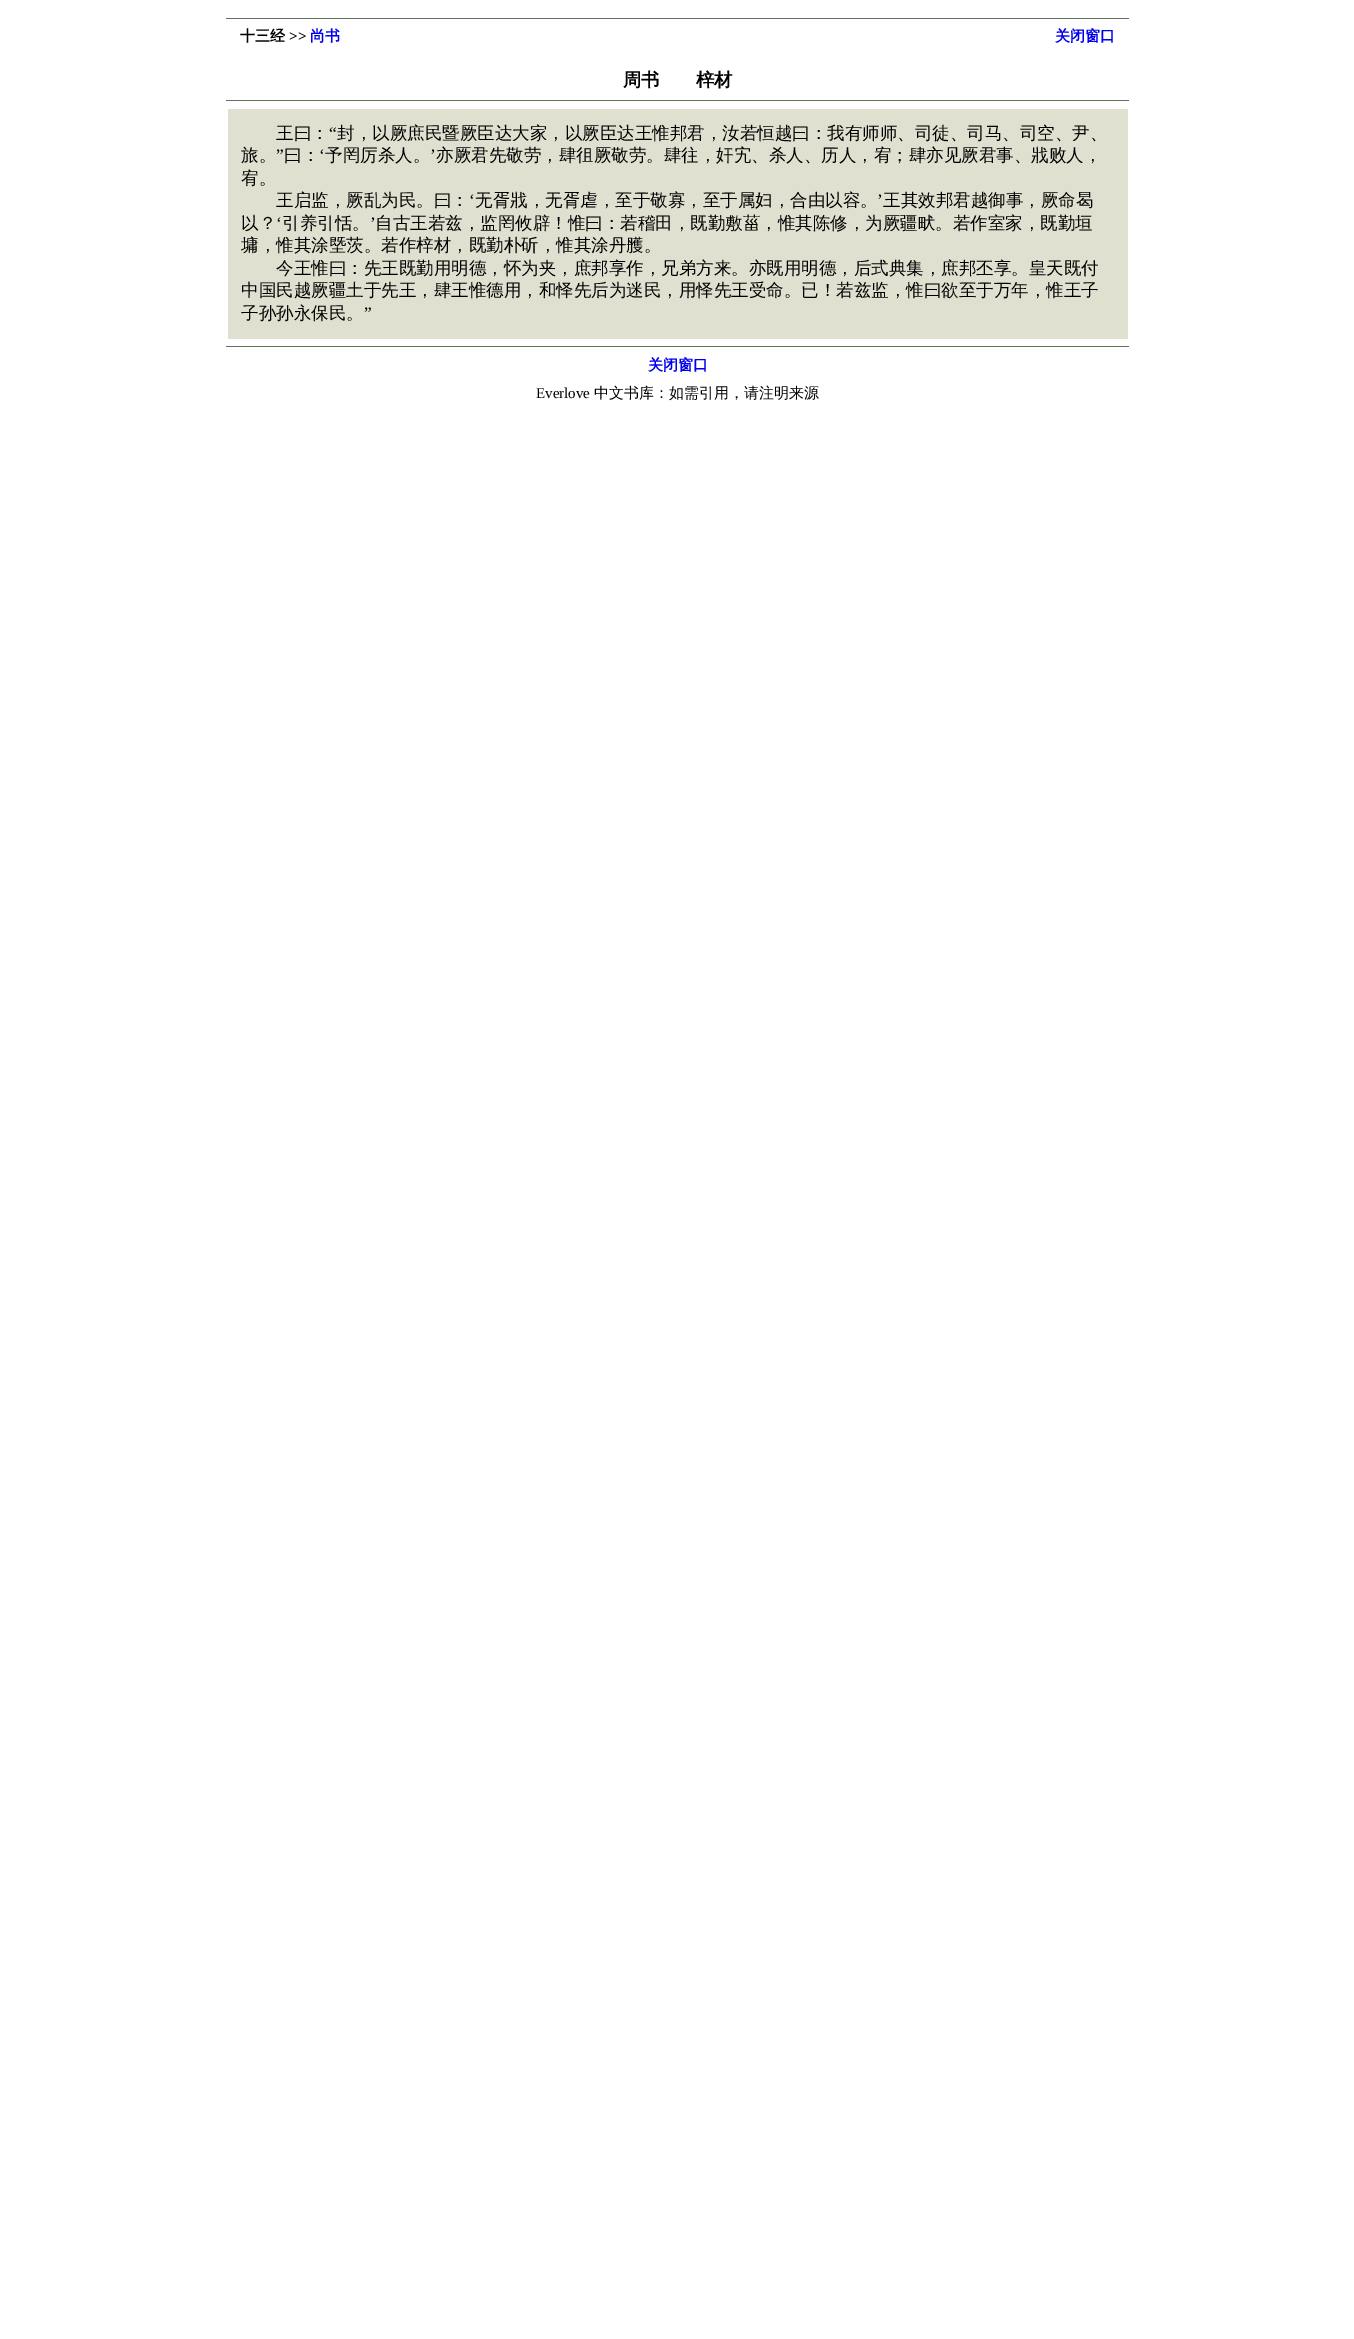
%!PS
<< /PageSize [1354 2339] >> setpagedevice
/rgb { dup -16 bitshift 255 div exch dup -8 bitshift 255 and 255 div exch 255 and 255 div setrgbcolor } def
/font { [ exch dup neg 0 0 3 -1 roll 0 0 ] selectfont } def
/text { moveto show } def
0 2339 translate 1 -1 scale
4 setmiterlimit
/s1 { /WenQuanYiZenHei-Bold 15 font 16#000000 rgb } def
/s2 { /LiberationSerif-Bold 15 font 16#000000 rgb } def
/s3 { /WenQuanYiZenHei-Bold 15 font 16#0000EE rgb } def
/s4 { /WenQuanYiZenHei-Bold 18.25 font 16#000000 rgb } def
/s5 { /WenQuanYiZenHei-Medium 17.5 font 16#000000 rgb } def
/s6 { /LiberationSerif-Regular 17.5 font 16#000000 rgb } def
/s7 { /LiberationSerif-Regular 15 font 16#000000 rgb } def
/s8 { /WenQuanYiZenHei-Medium 15 font 16#000000 rgb } def
16#FFFFFF rgb
0 0 1354 2339 rectfill
16#5E725E rgb
226 18 903 1 rectfill
s1
(十三经) 240 41 text
s2
(>>) 289 41 text
s3
(尚书) 310 41 text
(关闭窗口) 1055 41 text
s4
(周书　　梓材) 623 86 text
16#5E725E rgb
226 100 903 1 rectfill
16#E0E0D0 rgb
228 109 900 230 rectfill
s5
(王曰：) 276 139 text
s6
(“) 329 139 text
s5
(封，以厥庶民暨厥臣达大家，以厥臣达王惟邦君，汝若恒越曰：我有师师、司徒、司马、司空、尹、) 337 139 text
(旅。) 241 161 text
s6
(”) 276 161 text
s5
(曰：) 284 161 text
s6
(‘) 319 161 text
s5
(予罔厉杀人。) 325 161 text
s6
(’) 430 161 text
s5
(亦厥君先敬劳，肆徂厥敬劳。肆往，奸宄、杀人、历人，宥；肆亦见厥君事、戕败人，) 436 161 text
(宥。) 241 184 text
(王启监，厥乱为民。曰：) 276 206 text
s6
(‘) 469 206 text
s5
(无胥戕，无胥虐，至于敬寡，至于属妇，合由以容。) 475 206 text
s6
(’) 877 206 text
s5
(王其效邦君越御事，厥命曷) 883 206 text
(以？) 241 229 text
s6
(‘) 276 229 text
s5
(引养引恬。) 282 229 text
s6
(’) 370 229 text
s5
(自古王若兹，监罔攸辟！惟曰：若稽田，既勤敷菑，惟其陈修，为厥疆畎。若作室家，既勤垣) 375 229 text
(墉，惟其涂塈茨。若作梓材，既勤朴斫，惟其涂丹雘。) 241 251 text
(今王惟曰：先王既勤用明德，怀为夹，庶邦享作，兄弟方来。亦既用明德，后式典集，庶邦丕享。皇天既付) 276 274 text
(中国民越厥疆土于先王，肆王惟德用，和怿先后为迷民，用怿先王受命。已！若兹监，惟曰欲至于万年，惟王子) 241 296 text
(子孙孙永保民。) 241 319 text
s6
(”) 364 319 text
16#5E725E rgb
226 346 903 1 rectfill
s3
(关闭窗口) 648 370 text
s7
(Everlove) 536 398 text
s8
(中文书库：如需引用，请注明来源) 594 398 text
showpage
